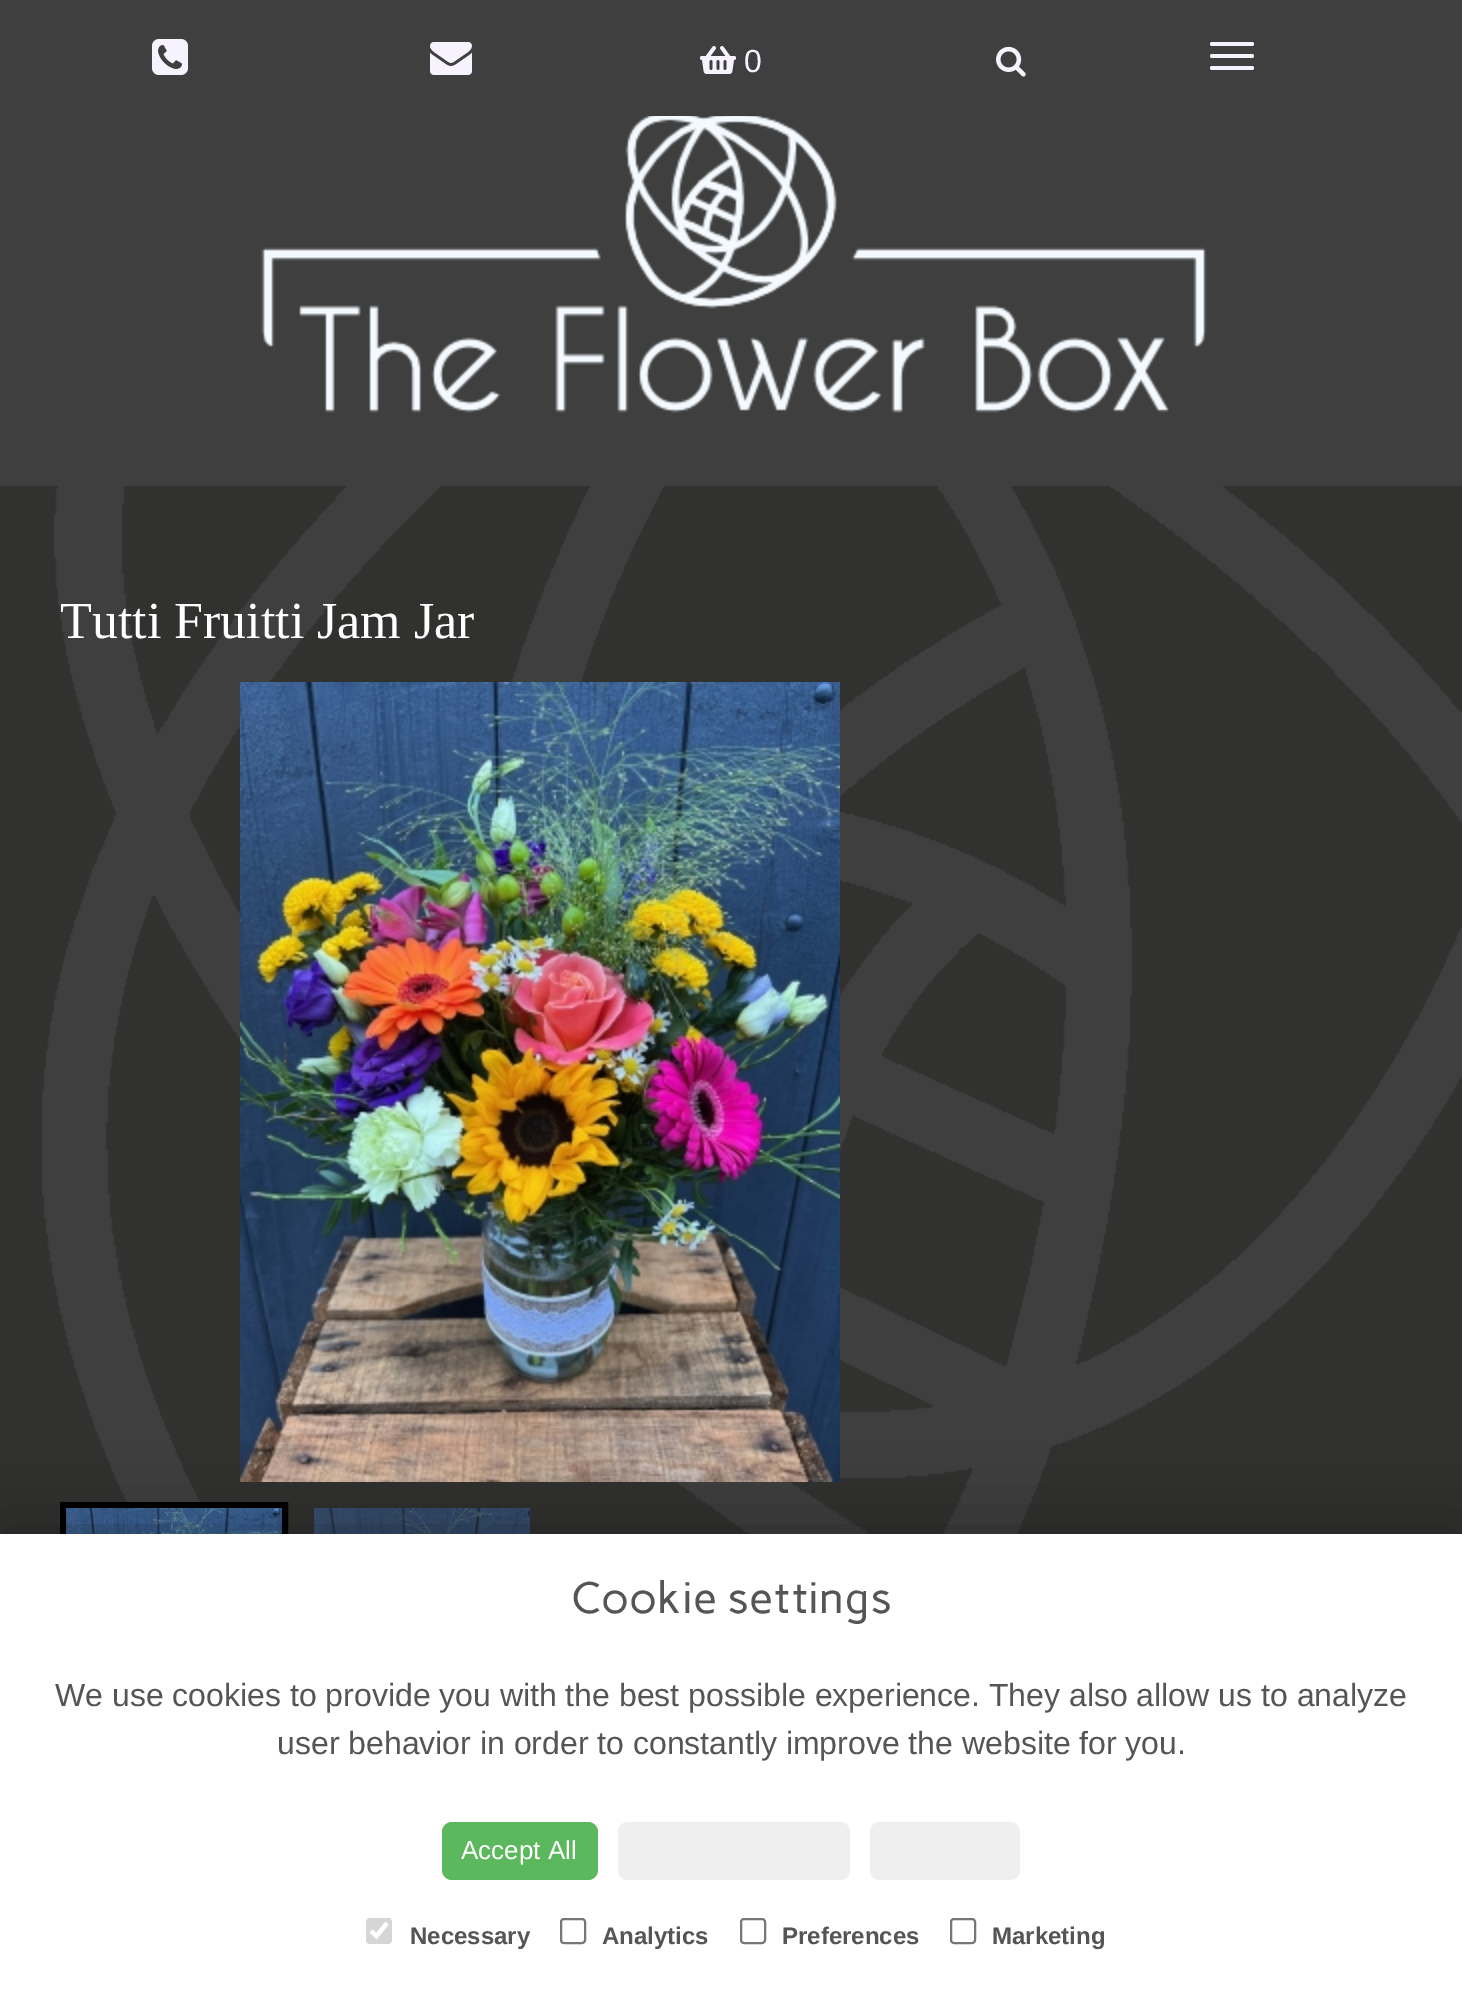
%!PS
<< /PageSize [1462 2003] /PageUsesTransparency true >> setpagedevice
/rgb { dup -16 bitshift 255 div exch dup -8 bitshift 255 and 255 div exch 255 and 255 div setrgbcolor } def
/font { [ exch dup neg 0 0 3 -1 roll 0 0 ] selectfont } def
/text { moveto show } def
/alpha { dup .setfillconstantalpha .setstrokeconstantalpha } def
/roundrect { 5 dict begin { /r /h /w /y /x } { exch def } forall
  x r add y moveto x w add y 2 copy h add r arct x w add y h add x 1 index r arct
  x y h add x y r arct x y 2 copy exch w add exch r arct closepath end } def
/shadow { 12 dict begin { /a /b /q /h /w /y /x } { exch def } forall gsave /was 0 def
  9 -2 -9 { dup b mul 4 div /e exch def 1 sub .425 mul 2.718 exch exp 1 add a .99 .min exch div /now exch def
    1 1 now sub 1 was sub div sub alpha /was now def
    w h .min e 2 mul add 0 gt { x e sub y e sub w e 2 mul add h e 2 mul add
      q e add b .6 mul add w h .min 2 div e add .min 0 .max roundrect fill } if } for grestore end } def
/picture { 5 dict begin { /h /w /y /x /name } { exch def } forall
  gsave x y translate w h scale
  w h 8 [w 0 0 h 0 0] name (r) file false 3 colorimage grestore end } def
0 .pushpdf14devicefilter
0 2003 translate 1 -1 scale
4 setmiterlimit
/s1 { /LiberationSans-Regular 32 font 16#F6F3FF rgb } def
/s2 { /LiberationSerif-Regular 52 font 16#FFFFFF rgb } def
/s3 { /Carme-Regular 44 font 16#555555 rgb } def
/s4 { /LiberationSans-Regular 32 font 16#555555 rgb } def
/s5 { /LiberationSans-Regular 26 font 16#FFFFFF rgb } def
/s6 { /LiberationSans-Bold 24 font 16#555555 rgb } def
16#313130 rgb
0 0 1462 2003 rectfill
(pic1.raw) 42 486 1420 1048 picture
16#3F3F3F rgb
0 0 1462 486 rectfill
(pic2.raw) 261 116 946 297 picture
(pic3.raw) 152 39 36 36 picture
(pic4.raw) 430 42 42 33 picture
(pic5.raw) 700 46 36 28 picture
s1
(0) 744 72 text
(pic6.raw) 996 46 30 31 picture
1210 42 44 4 2 roundrect fill
1210 54 44 4 2 roundrect fill
1210 66 44 4 2 roundrect fill
s2
(Tutti Fruitti Jam Jar) 60 638 text
(pic7.raw) 240 682 600 800 picture
16#000000 rgb
6 setlinewidth
63 1505 222 294 rectstroke
(pic8.raw) 66 1508 216 26 picture
(pic9.raw) 314 1508 216 26 picture
0 1534 1462 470 0 40 0.31 shadow
16#FFFFFF rgb
0 1534 1462 469 rectfill
s3
(Cookie settings) 571 1613 text
s4
(We use cookies to provide you with the best possible experience. They also allow us to analyze) 55 1706 text
(user behavior in order to constantly improve the website for you.) 277 1754 text
16#5CB85C rgb
442 1822 156 58 10 roundrect fill
s5
(Accept All) 461 1859 text
16#EFEFEF rgb
618 1822 232 58 10 roundrect fill
870 1822 150 58 10 roundrect fill
16#D6D6D6 rgb
366 1918 26 26 4 roundrect fill
16#FFFFFF rgb
4.2 setlinewidth
371 1931 moveto 376.5 1936 lineto 387 1923 lineto stroke
s6
(Necessary) 410 1944 text
16#767676 rgb
2 setlinewidth
561 1919 24 24 3 roundrect stroke
s6
(Analytics) 602 1944 text
16#767676 rgb
741 1919 24 24 3 roundrect stroke
s6
(Preferences) 782 1944 text
16#767676 rgb
951 1919 24 24 3 roundrect stroke
s6
(Marketing) 992 1944 text
.poppdf14devicefilter showpage
